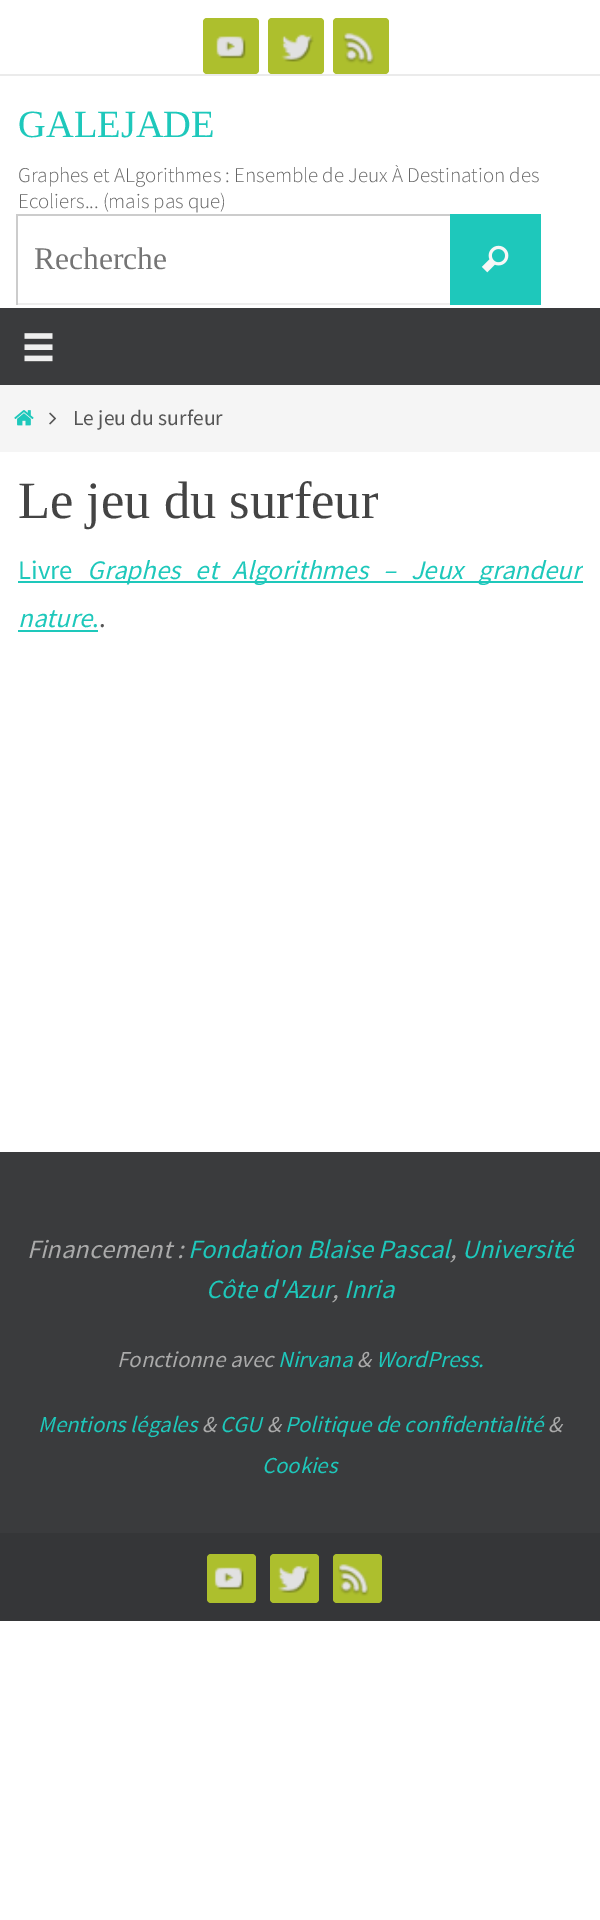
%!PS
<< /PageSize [600 1920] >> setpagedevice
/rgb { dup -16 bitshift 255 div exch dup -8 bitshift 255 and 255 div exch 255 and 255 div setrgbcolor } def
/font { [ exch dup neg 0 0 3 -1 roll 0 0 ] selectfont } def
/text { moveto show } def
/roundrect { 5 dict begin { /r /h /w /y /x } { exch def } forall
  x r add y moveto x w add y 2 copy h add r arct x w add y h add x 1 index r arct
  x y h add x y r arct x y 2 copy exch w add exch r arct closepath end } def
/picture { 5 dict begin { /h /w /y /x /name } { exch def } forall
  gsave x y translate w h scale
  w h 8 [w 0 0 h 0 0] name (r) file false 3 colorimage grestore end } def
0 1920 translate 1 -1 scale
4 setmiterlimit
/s1 { /LiberationSerif-Regular 38.5 font 16#1EC8BB rgb } def
/s2 { /SourceSansPro-Light 21 font 16#666666 rgb } def
/s3 { /LiberationSerif-Regular 31.5 font 16#757575 rgb } def
/s4 { /SourceSansPro-Regular 21.5 font 16#555555 rgb } def
/s5 { /LiberationSerif-Regular 52.5 font 16#444444 rgb } def
/s6 { /SourceSansPro-Regular 26.75 font 16#1EC8BB rgb } def
/s7 { /SourceSansPro-Italic 26.75 font 16#1EC8BB rgb } def
/s8 { /SourceSansPro-Regular 26.75 font 16#555555 rgb } def
/s9 { /SourceSansPro-Italic 26.25 font 16#AAAAAA rgb } def
/s10 { /SourceSansPro-Italic 26.25 font 16#1EC8BB rgb } def
/s11 { /SourceSansPro-Italic 22.75 font 16#AAAAAA rgb } def
/s12 { /SourceSansPro-Italic 22.75 font 16#1EC8BB rgb } def
16#FFFFFF rgb
0 0 600 1920 rectfill
16#EBEBEB rgb
0 74 600 2 rectfill
16#ADBF2D rgb
203 18 56 56 4 roundrect fill
(pic1.raw) 216 36 30 23 picture
268 18 56 56 4 roundrect fill
(pic2.raw) 281 34 33 28 picture
333 18 56 56 4 roundrect fill
(pic3.raw) 343 32 32 33 picture
s1
(GALEJADE) 18 137 text
s2
(Graphes et ALgorithmes : Ensemble de Jeux À Destination des) 18 182 text
(Ecoliers... \(mais pas que\)) 18 208 text
16#1EC8BB rgb
450 214 91 91 rectfill
16#CCCCCC rgb
16 214 434 2 rectfill
16#EEEEEE rgb
16 303 434 2 rectfill
16#CCCCCC rgb
16 214 2 91 rectfill
s3
(Recherche) 34 269 text
(pic4.raw) 481 245 28 28 picture
16#3A3B3D rgb
0 308 600 77 rectfill
(pic5.raw) 24 333 29 29 picture
16#F5F5F5 rgb
0 385 600 67 rectfill
(pic6.raw) 14 410 20 16 picture
(pic7.raw) 49 412 8 13 picture
s4
(Le jeu du surfeur) 73 425 text
s5
(Le jeu du surfeur) 18 518 text
s6
(Livre) 18 579 text
18 581 565 2 rectfill
gsave
18 469 565 200 rectclip
/SourceSansPro-Italic 26.75 font
87 579 moveto 9.5 0 32 (Graphes et Algorithmes – Jeux grandeur) widthshow
grestore
s7
(nature) 18 627 text
s6
(.) 92 627 text
18 630 80 2 rectfill
s8
(.) 99 627 text
16#3A3B3D rgb
0 1152 600 381 rectfill
s9
(Financement :) 27 1258 text
s10
(Fondation Blaise Pascal) 188 1258 text
(Université) 462 1258 text
s9
(,) 450 1258 text
s10
(Côte d'Azur) 206 1298 text
(Inria) 344 1298 text
s9
(,) 332 1298 text
s11
(Fonctionne avec) 117 1367 text
s12
(Nirvana) 278 1367 text
s11
(&) 357 1367 text
s12
(WordPress.) 376 1367 text
(Mentions légales) 38 1432 text
s11
(&) 202 1432 text
s12
(CGU) 220 1432 text
s11
(&) 267 1432 text
s12
(Politique de confidentialité) 285 1432 text
s11
(&) 548 1432 text
s12
(Cookies) 262 1473 text
16#353638 rgb
0 1533 600 88 rectfill
16#ADBF2D rgb
207 1554 49 49 4 roundrect fill
(pic8.raw) 214 1567 30 23 picture
270 1554 49 49 4 roundrect fill
(pic9.raw) 278 1565 32 28 picture
333 1554 49 49 4 roundrect fill
(pic10.raw) 338 1564 31 32 picture
showpage
